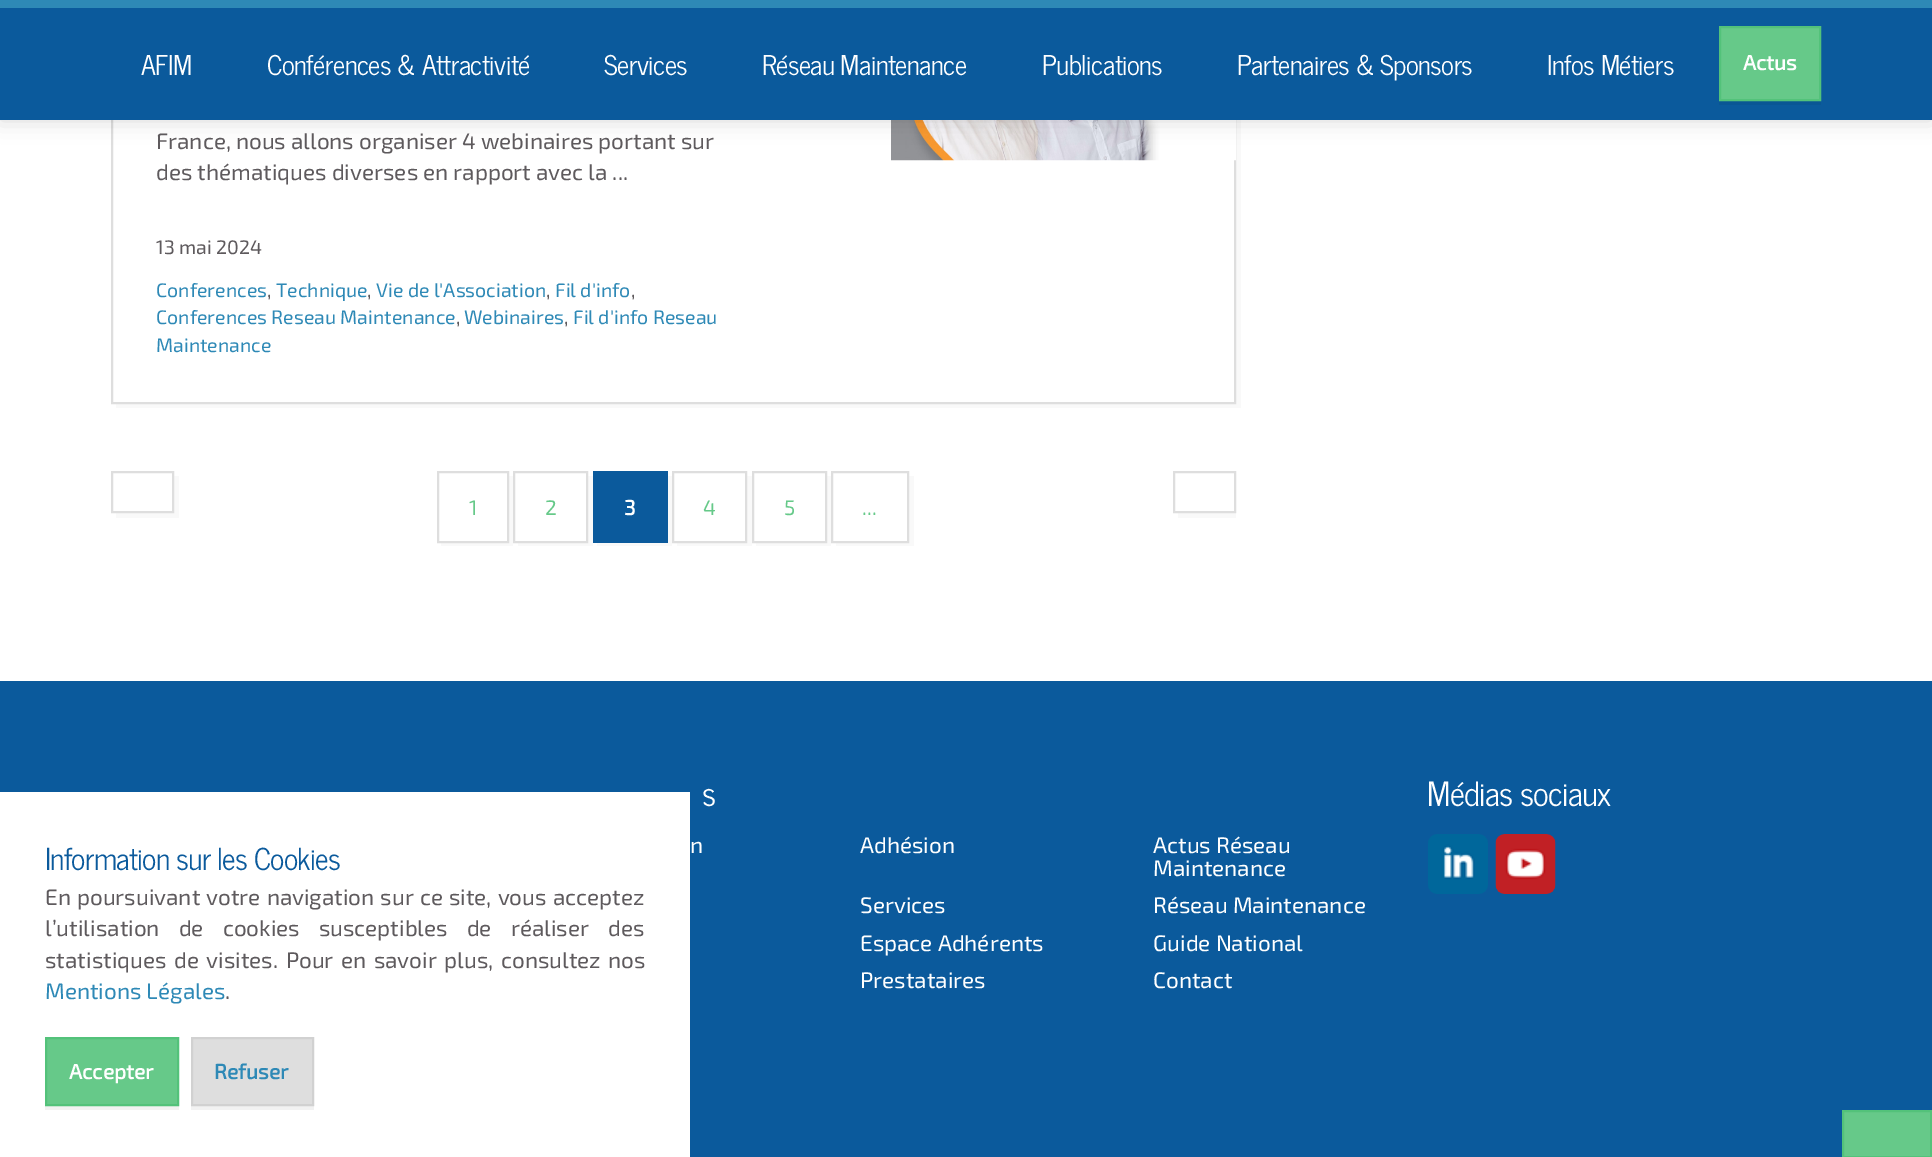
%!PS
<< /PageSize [1932 1157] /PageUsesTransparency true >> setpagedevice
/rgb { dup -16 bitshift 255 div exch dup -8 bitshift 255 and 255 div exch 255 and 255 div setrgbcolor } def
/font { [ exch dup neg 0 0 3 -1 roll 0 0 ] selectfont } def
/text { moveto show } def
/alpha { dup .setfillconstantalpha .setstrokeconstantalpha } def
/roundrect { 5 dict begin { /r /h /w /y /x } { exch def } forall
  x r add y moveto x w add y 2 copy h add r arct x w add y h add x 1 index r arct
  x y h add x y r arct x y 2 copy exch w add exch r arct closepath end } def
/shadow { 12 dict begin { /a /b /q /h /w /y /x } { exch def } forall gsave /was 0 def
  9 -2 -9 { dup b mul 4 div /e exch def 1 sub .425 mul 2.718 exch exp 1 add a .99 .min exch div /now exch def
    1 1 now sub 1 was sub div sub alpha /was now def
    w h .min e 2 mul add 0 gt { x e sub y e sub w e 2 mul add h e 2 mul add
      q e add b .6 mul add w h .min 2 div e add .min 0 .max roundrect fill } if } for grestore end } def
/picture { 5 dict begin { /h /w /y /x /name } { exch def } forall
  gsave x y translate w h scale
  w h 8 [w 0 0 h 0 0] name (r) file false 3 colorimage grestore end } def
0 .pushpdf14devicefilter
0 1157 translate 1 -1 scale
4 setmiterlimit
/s1 { /Exo2-Bold 21 font 16#FFFFFF rgb } def
/s2 { /Exo2-Regular 22.5 font 16#5E5A5D rgb } def
/s3 { /Exo2-Regular 19.5 font 16#5E5A5D rgb } def
/s4 { /Exo2-Regular 19.5 font 16#2E89B6 rgb } def
/s5 { /Exo2-Regular 21 font 16#66C989 rgb } def
/s6 { /Exo2-Regular 22.5 font 16#FFFFFF rgb } def
/s7 { /Exo2-Regular 22.5 font 16#2E89B6 rgb } def
/s8 { /Exo2-Bold 21 font 16#2E89B6 rgb } def
16#FFFFFF rgb
0 0 1932 1157 rectfill
16#F9F9F9 rgb
116 404 moveto 116 408 lineto 1241 408 lineto 1241 -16 lineto 1236 -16 lineto 1236 404 lineto closepath fill
16#DEDEDE rgb
2 setlinewidth
112 -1 1123 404 rectstroke
(pic1.raw) 891 120 345 41 picture
16#000000 rgb
0 -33 1932 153 0 11 0.15 shadow
16#2E89B6 rgb
0 0 1932 8 rectfill
16#0B5A9C rgb
0 8 1932 112 rectfill
/NewsCycle-Medium 27 font
16#FFFFFF rgb
141 75 moveto -0.55 0 (AFIM) ashow
267 75 moveto -0.55 0 (Conférences & Attractivité) ashow
604 75 moveto -0.55 0 (Services) ashow
762 75 moveto -0.55 0 (Réseau Maintenance) ashow
1042 75 moveto -0.55 0 (Publications) ashow
1237 75 moveto -0.55 0 (Partenaires & Sponsors) ashow
1547 75 moveto -0.55 0 (Infos Métiers) ashow
16#0A5694 rgb
1719 101 102 4 rectfill
16#66C989 rgb
1720 27 moveto 1820 27 lineto 1820 100 lineto 1720 100 lineto closepath gsave fill grestore
16#53C27A rgb
stroke
s1
(Actus) 1743 70 text
s2
(France, nous allons organiser 4 webinaires portant sur) 156 149 text
(des thématiques diverses en rapport avec la ...) 156 180 text
s3
(13 mai 2024) 156 254 text
s4
(Conferences) 156 297 text
s3
(,) 267 297 text
s4
(Technique) 276 297 text
s3
(,) 367 297 text
s4
(Vie de l'Association) 376 297 text
s3
(,) 546 297 text
s4
(Fil d'info) 555 297 text
s3
(,) 631 297 text
s4
(Conferences Reseau Maintenance) 156 324 text
s3
(,) 456 324 text
s4
(Webinaires) 464 324 text
s3
(,) 564 324 text
s4
(Fil d'info Reseau) 573 324 text
(Maintenance) 156 352 text
16#F9F9F9 rgb
116 513 moveto 116 518 lineto 179 518 lineto 179 476 lineto 174 476 lineto 174 513 lineto closepath fill
16#DEDEDE rgb
112 472 61 40 rectstroke
gsave
111 471 1125 75 rectclip
16#F9F9F9 rgb
441 543 moveto 441 548 lineto 513 548 lineto 513 476 lineto 508 476 lineto 508 543 lineto closepath fill
grestore
438 472 70 70 rectstroke
s5
(1) 469 515 text
gsave
111 471 1125 75 rectclip
16#F9F9F9 rgb
518 543 moveto 518 548 lineto 593 548 lineto 593 476 lineto 588 476 lineto 588 543 lineto closepath fill
grestore
16#DEDEDE rgb
514 472 73 70 rectstroke
s5
(2) 545 515 text
gsave
111 471 1125 75 rectclip
16#F9F9F9 rgb
597 543 moveto 597 548 lineto 672 548 lineto 672 476 lineto 668 476 lineto 668 543 lineto closepath fill
grestore
16#0B5A9C rgb
593 471 75 72 rectfill
s1
(3) 624 515 text
gsave
111 471 1125 75 rectclip
16#F9F9F9 rgb
677 543 moveto 677 548 lineto 752 548 lineto 752 476 lineto 747 476 lineto 747 543 lineto closepath fill
grestore
16#DEDEDE rgb
673 472 73 70 rectstroke
s5
(4) 703 515 text
gsave
111 471 1125 75 rectclip
16#F9F9F9 rgb
756 543 moveto 756 548 lineto 831 548 lineto 831 476 lineto 826 476 lineto 826 543 lineto closepath fill
grestore
16#DEDEDE rgb
753 472 73 70 rectstroke
s5
(5) 784 515 text
gsave
111 471 1125 75 rectclip
16#F9F9F9 rgb
836 543 moveto 836 548 lineto 914 548 lineto 914 476 lineto 909 476 lineto 909 543 lineto closepath fill
grestore
16#DEDEDE rgb
832 472 76 70 rectstroke
s5
(...) 862 515 text
gsave
111 471 1125 75 rectclip
16#F9F9F9 rgb
1178 513 moveto 1178 518 lineto 1241 518 lineto 1241 476 lineto 1236 476 lineto 1236 513 lineto closepath fill
grestore
16#DEDEDE rgb
1174 472 61 40 rectstroke
16#0B5A9C rgb
0 681 1932 476 rectfill
/NewsCycle-Medium 33 font
16#FFFFFF rgb
702 806 moveto -0.8 0 (s) ashow
s6
(n) 690 853 text
(Adhésion) 860 853 text
(Actus Réseau) 1153 853 text
(Maintenance) 1153 876 text
(Services) 860 913 text
(Réseau Maintenance) 1153 913 text
(Espace Adhérents) 860 951 text
(Guide National) 1153 951 text
(Prestataires) 860 988 text
(Contact) 1153 988 text
/NewsCycle-Medium 33 font
1427 806 moveto -0.8 0 (Médias sociaux) ashow
(pic2.raw) 1428 834 60 60 picture
(pic3.raw) 1495 834 61 60 picture
16#66C989 rgb
1843 1111 moveto 1931 1111 lineto 1931 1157 lineto 1843 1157 lineto closepath gsave fill grestore
16#53C27A rgb
stroke
16#FFFFFF rgb
0 792 690 365 rectfill
/NewsCycle-Medium 30 font
16#0B5A9C rgb
45 870 moveto -0.75 0 (Information sur les Cookies) ashow
/Exo2-Regular 22.5 font
16#5E5A5D rgb
45 905 moveto 1 0 32 (En poursuivant votre navigation sur ce site, vous acceptez) widthshow
45 936 moveto 14 0 32 (l’utilisation de cookies susceptibles de réaliser des) widthshow
45 968 moveto 2.5 0 32 (statistiques de visites. Pour en savoir plus, consultez nos) widthshow
s7
(Mentions Légales) 45 999 text
s2
(.) 225 999 text
16#F2F2F2 rgb
45 1106 moveto 45 1110 lineto 179 1110 lineto 179 1041 lineto 178 1041 lineto 178 1106 lineto closepath fill
16#66C989 rgb
46 1038 moveto 178 1038 lineto 178 1105 lineto 46 1105 lineto closepath gsave fill grestore
16#53C27A rgb
stroke
s1
(Accepter) 69 1079 text
16#F2F2F2 rgb
191 1106 moveto 191 1110 lineto 314 1110 lineto 314 1041 lineto 314 1106 lineto closepath fill
16#DEDEDE rgb
192 1038 moveto 313 1038 lineto 313 1105 lineto 192 1105 lineto closepath gsave fill grestore
16#D1D1D1 rgb
stroke
s8
(Refuser) 214 1079 text
.poppdf14devicefilter showpage
